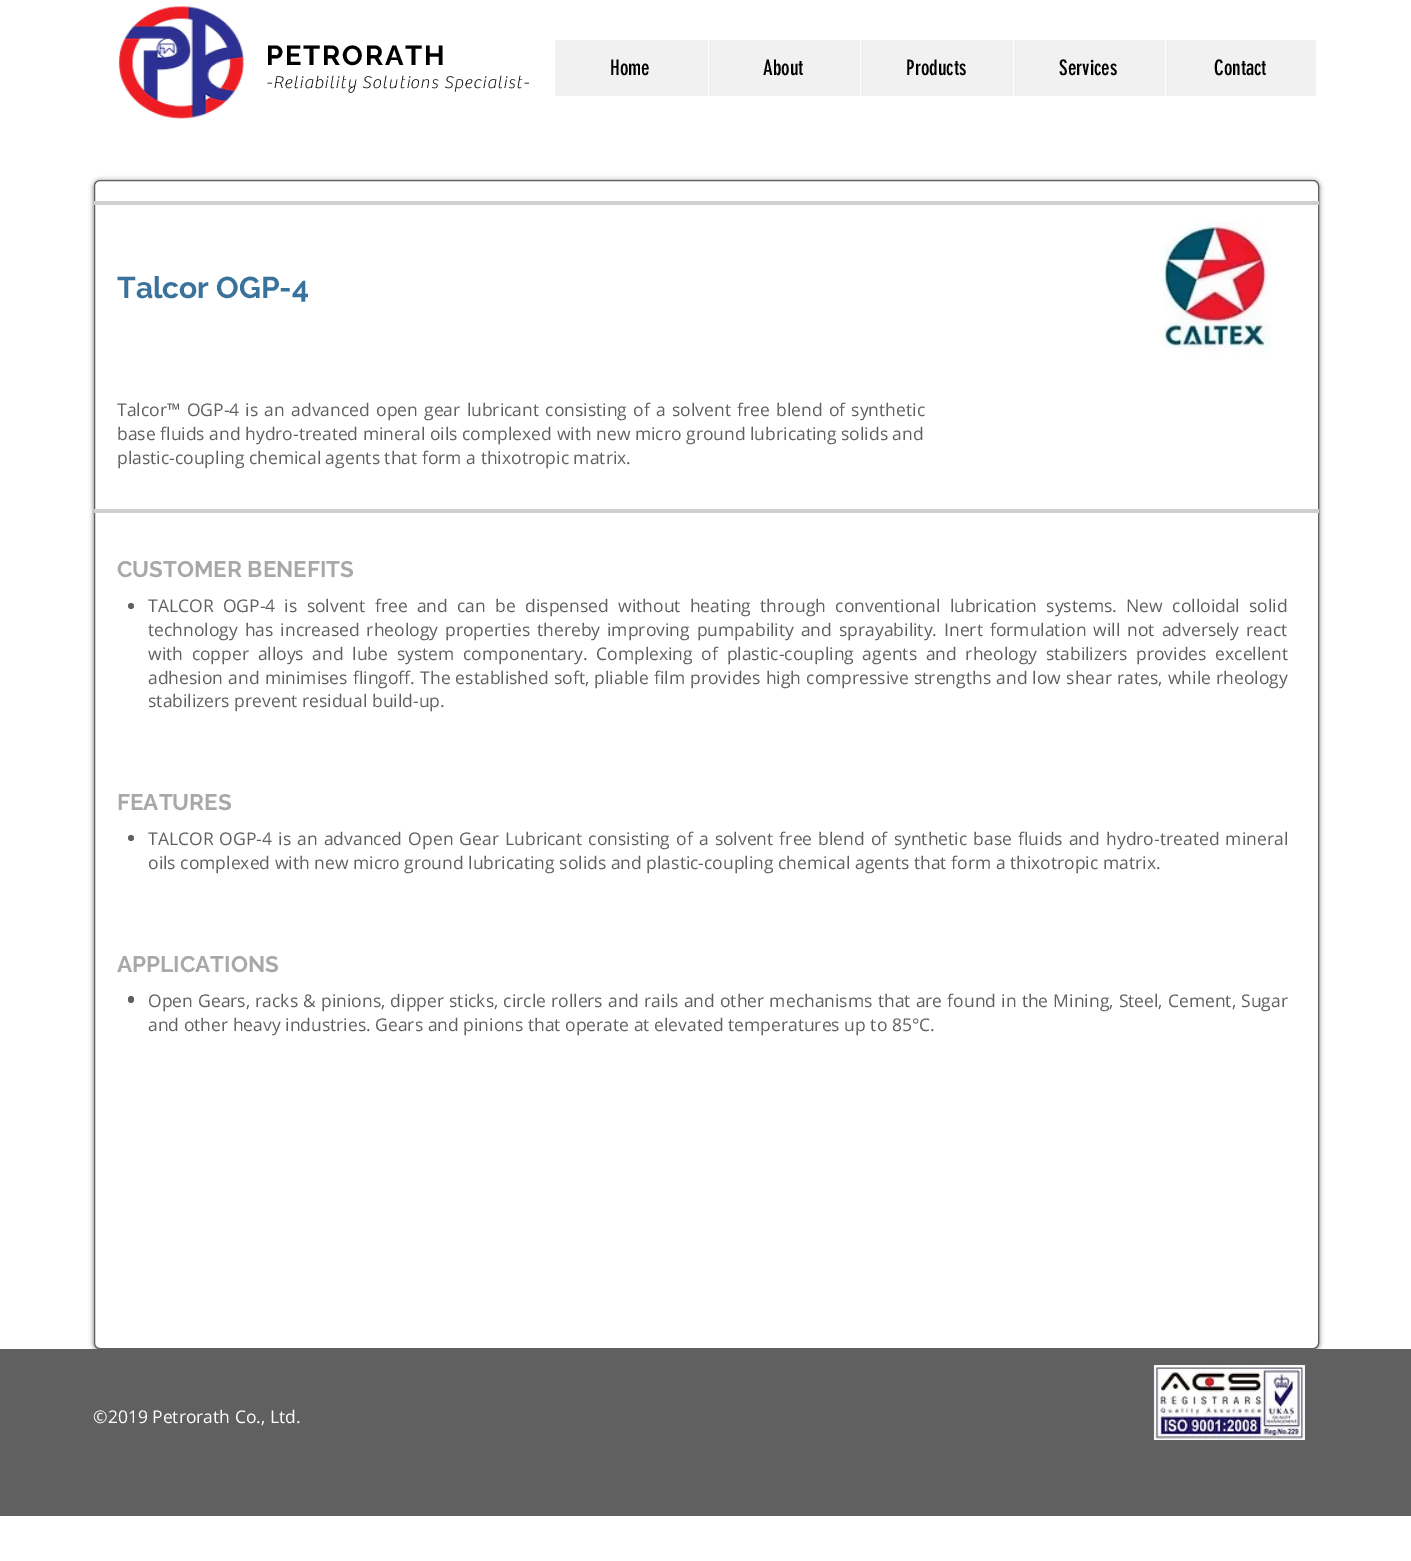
%!PS
<< /PageSize [1411 1561] /PageUsesTransparency true >> setpagedevice
/rgb { dup -16 bitshift 255 div exch dup -8 bitshift 255 and 255 div exch 255 and 255 div setrgbcolor } def
/font { [ exch dup neg 0 0 3 -1 roll 0 0 ] selectfont } def
/text { moveto show } def
/alpha { dup .setfillconstantalpha .setstrokeconstantalpha } def
/circle { newpath 0 360 arc closepath } def
/roundrect { 5 dict begin { /r /h /w /y /x } { exch def } forall
  x r add y moveto x w add y 2 copy h add r arct x w add y h add x 1 index r arct
  x y h add x y r arct x y 2 copy exch w add exch r arct closepath end } def
/shadow { 12 dict begin { /a /b /q /h /w /y /x } { exch def } forall gsave /was 0 def
  9 -2 -9 { dup b mul 4 div /e exch def 1 sub .425 mul 2.718 exch exp 1 add a .99 .min exch div /now exch def
    1 1 now sub 1 was sub div sub alpha /was now def
    w h .min e 2 mul add 0 gt { x e sub y e sub w e 2 mul add h e 2 mul add
      q e add b .6 mul add w h .min 2 div e add .min 0 .max roundrect fill } if } for grestore end } def
/picture { 5 dict begin { /h /w /y /x /name } { exch def } forall
  gsave x y translate w h scale
  w h 8 [w 0 0 h 0 0] name (r) file false 3 colorimage grestore end } def
0 .pushpdf14devicefilter
0 1561 translate 1 -1 scale
4 setmiterlimit
/s1 { /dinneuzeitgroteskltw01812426-Regular 21 font 16#000000 rgb } def
/s2 { /Raleway-Bold 30 font 16#39729B rgb } def
/s3 { /OpenSans-Regular 17.5 font 16#606060 rgb } def
/s4 { /Raleway-Bold 22.5 font 16#A8A8A8 rgb } def
/s5 { /OpenSans-Regular 17.5 font 16#FFFFFF rgb } def
16#FFFFFF rgb
0 0 1411 1561 rectfill
(pic1.raw) 118 6 126 113 picture
/Raleway-Bold 27.5 font
16#000000 rgb
266 65 moveto 1.75 0 (PETRORATH) ashow
/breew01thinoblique-Thin 17.5 font
266 88 moveto 1.05 0 (-Reliability Solutions Specialist-) ashow
16#F1F1F1 rgb
555 40 761 56 rectfill
s1
(Home) 610 75 text
16#FFFFFF rgb
708 40 1 56 rectfill
s1
(About) 763 75 text
16#FFFFFF rgb
860 40 1 56 rectfill
s1
(Products) 906 75 text
16#FFFFFF rgb
1013 40 1 56 rectfill
s1
(Services) 1059 75 text
16#FFFFFF rgb
1165 40 1 56 rectfill
s1
(Contact) 1214 75 text
gsave
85 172 moveto 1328 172 lineto 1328 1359 lineto 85 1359 lineto closepath 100 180 moveto 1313 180 lineto 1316.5 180 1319 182.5 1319 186 curveto 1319 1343 lineto 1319 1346.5 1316.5 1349 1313 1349 curveto 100 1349 lineto 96.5 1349 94 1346.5 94 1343 curveto 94 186 lineto 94 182.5 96.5 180 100 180 curveto closepath eoclip newpath
94 181 1225 1169 6 2.5 0.6 shadow
grestore
16#606060 rgb
94.5 180.5 1224 1168 5.5 roundrect stroke
16#CFCFCF rgb
94 201 1225 4 rectfill
s2
(Talcor OGP-4) 117 298 text
(pic2.raw) 1159 222 112 131 picture
/OpenSans-Regular 17.5 font
16#606060 rgb
117 416 moveto 1.7 0 32 (Talcor™ OGP-4 is an advanced open gear lubricant consisting of a solvent free blend of synthetic) widthshow
(base fluids and hydro-treated mineral oils complexed with new micro ground lubricating solids and) 117 440 text
(plastic-coupling chemical agents that form a thixotropic matrix.) 117 464 text
16#CFCFCF rgb
94 509 1225 4 rectfill
s4
(CUSTOMER BENEFITS) 117 577 text
16#606060 rgb
131 606 3 circle fill
/OpenSans-Regular 17.5 font
148 612 moveto 4.75 0 32 (TALCOR OGP-4 is solvent free and can be dispensed without heating through conventional lubrication systems. New colloidal solid) widthshow
148 636 moveto 2.4 0 32 (technology has increased rheology properties thereby improving pumpability and sprayability. Inert formulation will not adversely react) widthshow
148 660 moveto 4.1 0 32 (with copper alloys and lube system componentary. Complexing of plastic-coupling agents and rheology stabilizers provides excellent) widthshow
148 684 moveto 0.6 0 32 (adhesion and minimises flingoff. The established soft, pliable film provides high compressive strengths and low shear rates, while rheology) widthshow
(stabilizers prevent residual build-up.) 148 707 text
s4
(FEATURES) 117 810 text
16#606060 rgb
131 838 3 circle fill
/OpenSans-Regular 17.5 font
148 845 moveto 1.6 0 32 (TALCOR OGP-4 is an advanced Open Gear Lubricant consisting of a solvent free blend of synthetic base fluids and hydro-treated mineral) widthshow
(oils complexed with new micro ground lubricating solids and plastic-coupling chemical agents that form a thixotropic matrix.) 148 869 text
s4
(APPLICATIONS) 117 972 text
16#606060 rgb
128 996 6 7 3 roundrect fill
/OpenSans-Regular 17.5 font
148 1007 moveto 0.6 0 32 (Open Gears, racks & pinions, dipper sticks, circle rollers and rails and other mechanisms that are found in the Mining, Steel, Cement, Sugar) widthshow
(and other heavy industries. Gears and pinions that operate at elevated temperatures up to 85°C.) 148 1031 text
0 1349 1411 167 rectfill
s5
(©2019 Petrorath Co., Ltd.) 93 1423 text
(pic3.raw) 1153 1365 152 75 picture
.poppdf14devicefilter showpage
